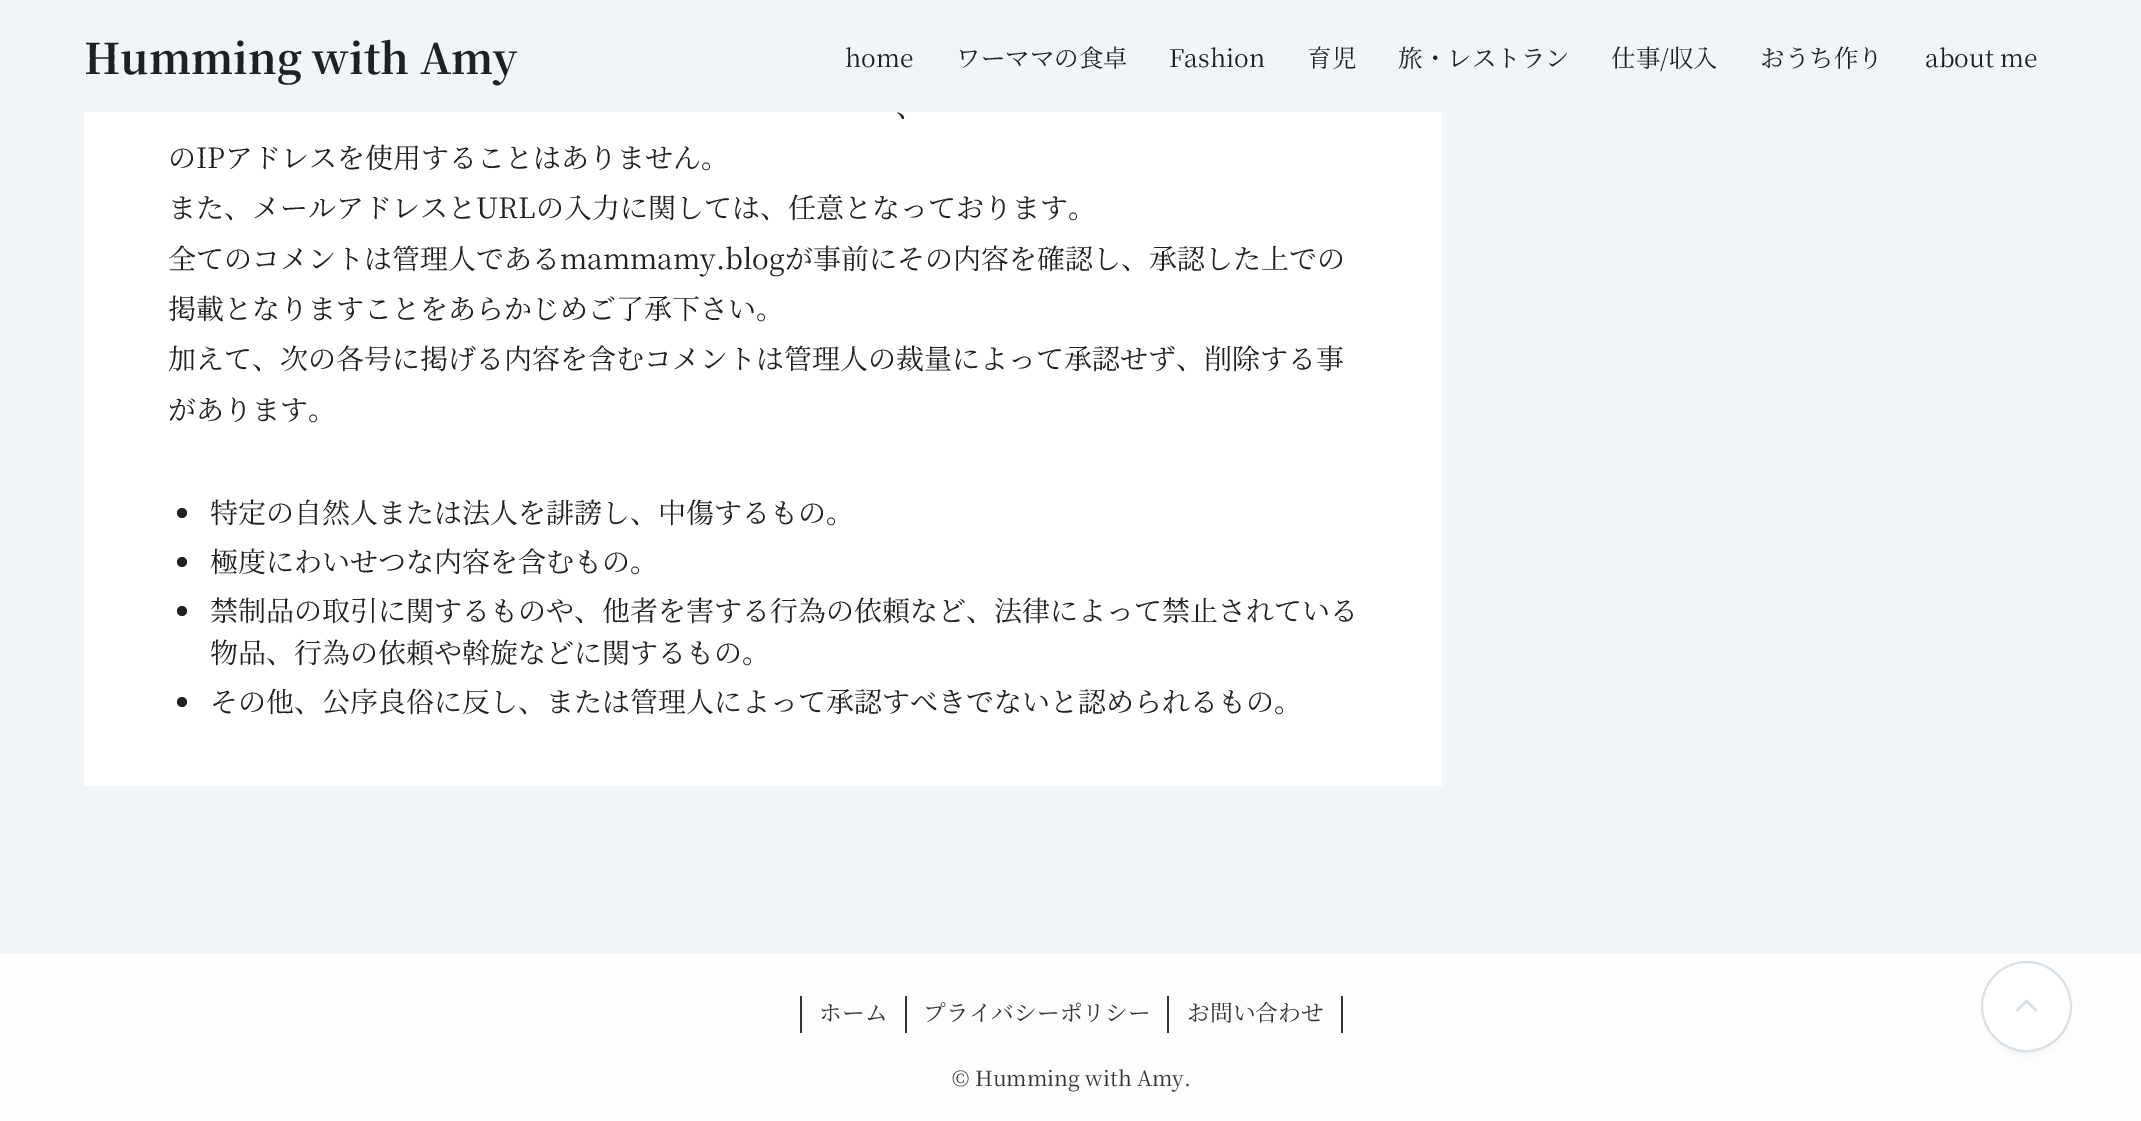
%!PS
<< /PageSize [2141 1121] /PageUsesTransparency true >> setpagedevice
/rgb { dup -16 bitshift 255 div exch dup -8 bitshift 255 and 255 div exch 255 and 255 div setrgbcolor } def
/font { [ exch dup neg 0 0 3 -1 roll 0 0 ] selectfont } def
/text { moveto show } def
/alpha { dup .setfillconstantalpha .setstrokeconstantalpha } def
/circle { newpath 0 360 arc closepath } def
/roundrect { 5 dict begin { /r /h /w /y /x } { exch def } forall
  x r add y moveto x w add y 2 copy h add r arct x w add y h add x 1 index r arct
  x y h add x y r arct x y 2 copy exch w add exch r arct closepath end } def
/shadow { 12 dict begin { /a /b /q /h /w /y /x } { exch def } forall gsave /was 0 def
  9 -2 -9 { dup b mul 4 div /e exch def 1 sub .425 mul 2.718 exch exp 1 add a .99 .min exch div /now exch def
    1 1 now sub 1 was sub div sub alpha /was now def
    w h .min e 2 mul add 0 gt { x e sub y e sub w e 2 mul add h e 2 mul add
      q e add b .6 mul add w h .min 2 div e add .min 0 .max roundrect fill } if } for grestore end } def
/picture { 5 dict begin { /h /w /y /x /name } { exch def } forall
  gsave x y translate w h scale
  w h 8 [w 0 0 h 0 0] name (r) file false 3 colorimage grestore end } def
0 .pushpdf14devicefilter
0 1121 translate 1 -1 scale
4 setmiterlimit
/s1 { /NotoSerifJP-Bold 42 font 16#1E2022 rgb } def
/s2 { /NotoSerifJP-Regular 24.5 font 16#1E2022 rgb } def
/s3 { /NotoSerifJP-Regular 28 font 16#1E2022 rgb } def
/s4 { /NotoSerifJP-Regular 22.75 font 16#333333 rgb } def
/s5 { /NotoSerifJP-Regular 21 font 16#333333 rgb } def
16#F0F5F9 rgb
0 0 2141 1121 rectfill
s1
(Humming with Amy) 84 74 text
s2
(home) 845 67 text
(ワーママの食卓) 956 67 text
(Fashion) 1169 67 text
(育児) 1307 67 text
(旅・レストラン) 1398 67 text
(仕事/収入) 1611 67 text
(おうち作り) 1760 67 text
(about me) 1925 67 text
16#FFFFFF rgb
84 112 1358 674 rectfill
s3
(、) 896 117 text
(のIPアドレスを使用することはありません。) 168 168 text
(また、メールアドレスとURLの入力に関しては、任意となっております。) 168 218 text
(全てのコメントは管理人であるmammamy.blogが事前にその内容を確認し、承認した上での) 168 269 text
(掲載となりますことをあらかじめご了承下さい。) 168 319 text
(加えて、次の各号に掲げる内容を含むコメントは管理人の裁量によって承認せず、削除する事) 168 369 text
(があります。) 168 420 text
182 513 5 circle fill
(特定の自然人または法人を誹謗し、中傷するもの。) 210 523 text
182 562 5 circle fill
(極度にわいせつな内容を含むもの。) 210 572 text
182 611 5 circle fill
(禁制品の取引に関するものや、他者を害する行為の依頼など、法律によって禁止されている) 210 621 text
(物品、行為の依頼や斡旋などに関するもの。) 210 663 text
182 702 5 circle fill
(その他、公序良俗に反し、または管理人によって承認すべきでないと認められるもの。) 210 712 text
16#FDFDFD rgb
0 954 2141 167 rectfill
16#333333 rgb
905 996 2 37 rectfill
800 996 2 37 rectfill
s4
(ホーム) 819 1021 text
1167 996 2 37 rectfill
(プライバシーポリシー) 923 1021 text
1341 996 2 37 rectfill
(お問い合わせ) 1187 1021 text
s5
(© Humming with Amy.) 952 1086 text
16#3F3F3F rgb
1988 975 77 77 38.5 3.5 0.1 shadow
16#FFFFFF rgb
2026.5 1006.5 44.5 circle gsave fill grestore
16#D6E0E6 rgb
2 setlinewidth
stroke
(pic1.raw) 2015 999 23 13 picture
.poppdf14devicefilter showpage
